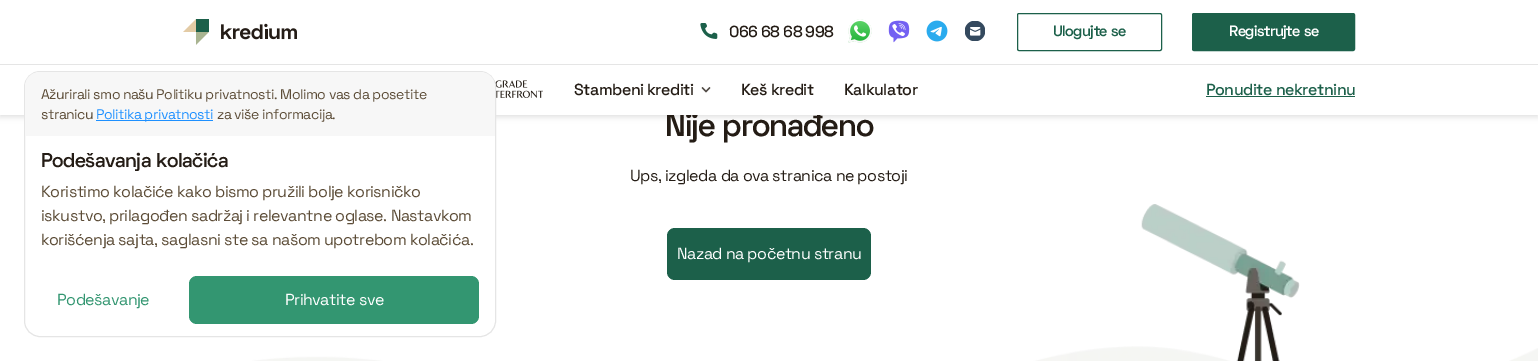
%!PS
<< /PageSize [1538 361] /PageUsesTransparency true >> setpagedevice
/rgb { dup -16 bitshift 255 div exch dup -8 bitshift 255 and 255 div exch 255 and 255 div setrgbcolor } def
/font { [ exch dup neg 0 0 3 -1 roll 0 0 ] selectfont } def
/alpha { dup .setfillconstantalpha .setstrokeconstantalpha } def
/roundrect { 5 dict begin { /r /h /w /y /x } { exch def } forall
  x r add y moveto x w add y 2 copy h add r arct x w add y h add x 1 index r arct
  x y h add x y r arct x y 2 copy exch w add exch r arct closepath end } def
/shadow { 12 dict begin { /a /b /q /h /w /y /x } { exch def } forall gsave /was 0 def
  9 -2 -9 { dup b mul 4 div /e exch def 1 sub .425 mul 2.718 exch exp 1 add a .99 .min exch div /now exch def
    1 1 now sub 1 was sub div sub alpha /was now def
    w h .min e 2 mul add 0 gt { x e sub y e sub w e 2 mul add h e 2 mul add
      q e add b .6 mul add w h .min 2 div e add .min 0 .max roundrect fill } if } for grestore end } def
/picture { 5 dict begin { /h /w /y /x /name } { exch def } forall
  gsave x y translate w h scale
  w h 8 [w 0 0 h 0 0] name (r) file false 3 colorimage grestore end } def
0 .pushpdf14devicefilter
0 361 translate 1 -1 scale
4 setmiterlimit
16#FFFFFF rgb
0 0 1538 361 rectfill
(pic1.raw) 252 204 1286 157 picture
16#000000 rgb
0 2 1538 115 0 3 0.12 shadow
/SpaceGrotesk-SemiBold 32 font
16#241C15 rgb
665 136 moveto -1 0 (Nije pronađeno) ashow
16#FFFFFF rgb
0 0 1538 115 rectfill
(pic2.raw) 183 19 114 26 picture
(pic3.raw) 700 23 18 16 picture
/SpaceGrotesk-Medium 16 font
16#241C15 rgb
729 37 moveto -0.5 0 (066 68 68 998) ashow
(pic4.raw) 848 19 24 24 picture
(pic5.raw) 888 20 22 23 picture
(pic6.raw) 926 20 22 22 picture
(pic7.raw) 965 21 20 20 picture
16#1C604A rgb
1017.5 13.5 144 37 1.5 roundrect stroke
/SpaceGrotesk-SemiBold 15 font
1053 36 moveto -0.5 0 (Ulogujte se) ashow
1193 14 161 36 1 roundrect gsave fill grestore
2 setlinewidth
stroke
16#FFFFFF rgb
1229 36 moveto -0.5 0 (Registrujte se) ashow
16#E5E5E5 rgb
0 64 1538 1 rectfill
(pic8.raw) 495 80 48 18 picture
16#FFFFFF rgb
24.5 71.5 471 265 15.5 roundrect gsave fill grestore
16#E5E5E5 rgb
1 setlinewidth
stroke
16#F7F7F7 rgb
40 72 moveto 480 72 lineto 488.5 72 495 78.5 495 87 curveto 495 136 lineto 25 136 lineto 25 87 lineto 25 78.5 31.5 72 40 72 curveto closepath fill
/SpaceGrotesk-Regular 14 font
16#5C4C37 rgb
41 99 moveto -0.5 0 (Ažurirali smo našu Politiku privatnosti. Molimo vas da posetite) ashow
41 119 moveto -0.5 0 (stranicu) ashow
16#1E90FF rgb
96 120 117 1 rectfill
96 119 moveto -0.5 0 (Politika privatnosti) ashow
16#5C4C37 rgb
217 119 moveto -0.5 0 (za više informacija.) ashow
/SpaceGrotesk-SemiBold 20 font
16#241C15 rgb
41 167 moveto -0.5 0 (Podešavanja kolačića) ashow
/SpaceGrotesk-Regular 16 font
16#5C4C37 rgb
41 197 moveto -0.5 0 (Koristimo kolačiće kako bismo pružili bolje korisničko) ashow
41 221 moveto -0.5 0 (iskustvo, prilagođen sadržaj i relevantne oglase. Nastavkom) ashow
41 245 moveto -0.5 0 (korišćenja sajta, saglasni ste sa našom upotrebom kolačića.) ashow
16#339671 rgb
57 305 moveto -0.5 0 (Podešavanje) ashow
189 276 290 48 8 roundrect fill
16#FFFFFF rgb
285 305 moveto -0.5 0 (Prihvatite sve) ashow
/SpaceGrotesk-Medium 16 font
16#241C15 rgb
574 95 moveto -0.5 0 (Stambeni krediti) ashow
(pic9.raw) 701 87 10 6 picture
741 95 moveto -0.5 0 (Keš kredit) ashow
844 95 moveto -0.5 0 (Kalkulator) ashow
16#1C604A rgb
1206 95 moveto -0.5 0 (Ponudite nekretninu) ashow
1206 96 149 1 rectfill
/SpaceGrotesk-Regular 16 font
16#241C15 rgb
630 181 moveto -0.5 0 (Ups, izgleda da ova stranica ne postoji) ashow
16#1C604A rgb
667 228 204 52 8 roundrect fill
16#FFFFFF rgb
677 259 moveto -0.5 0 (Nazad na početnu stranu) ashow
.poppdf14devicefilter showpage
